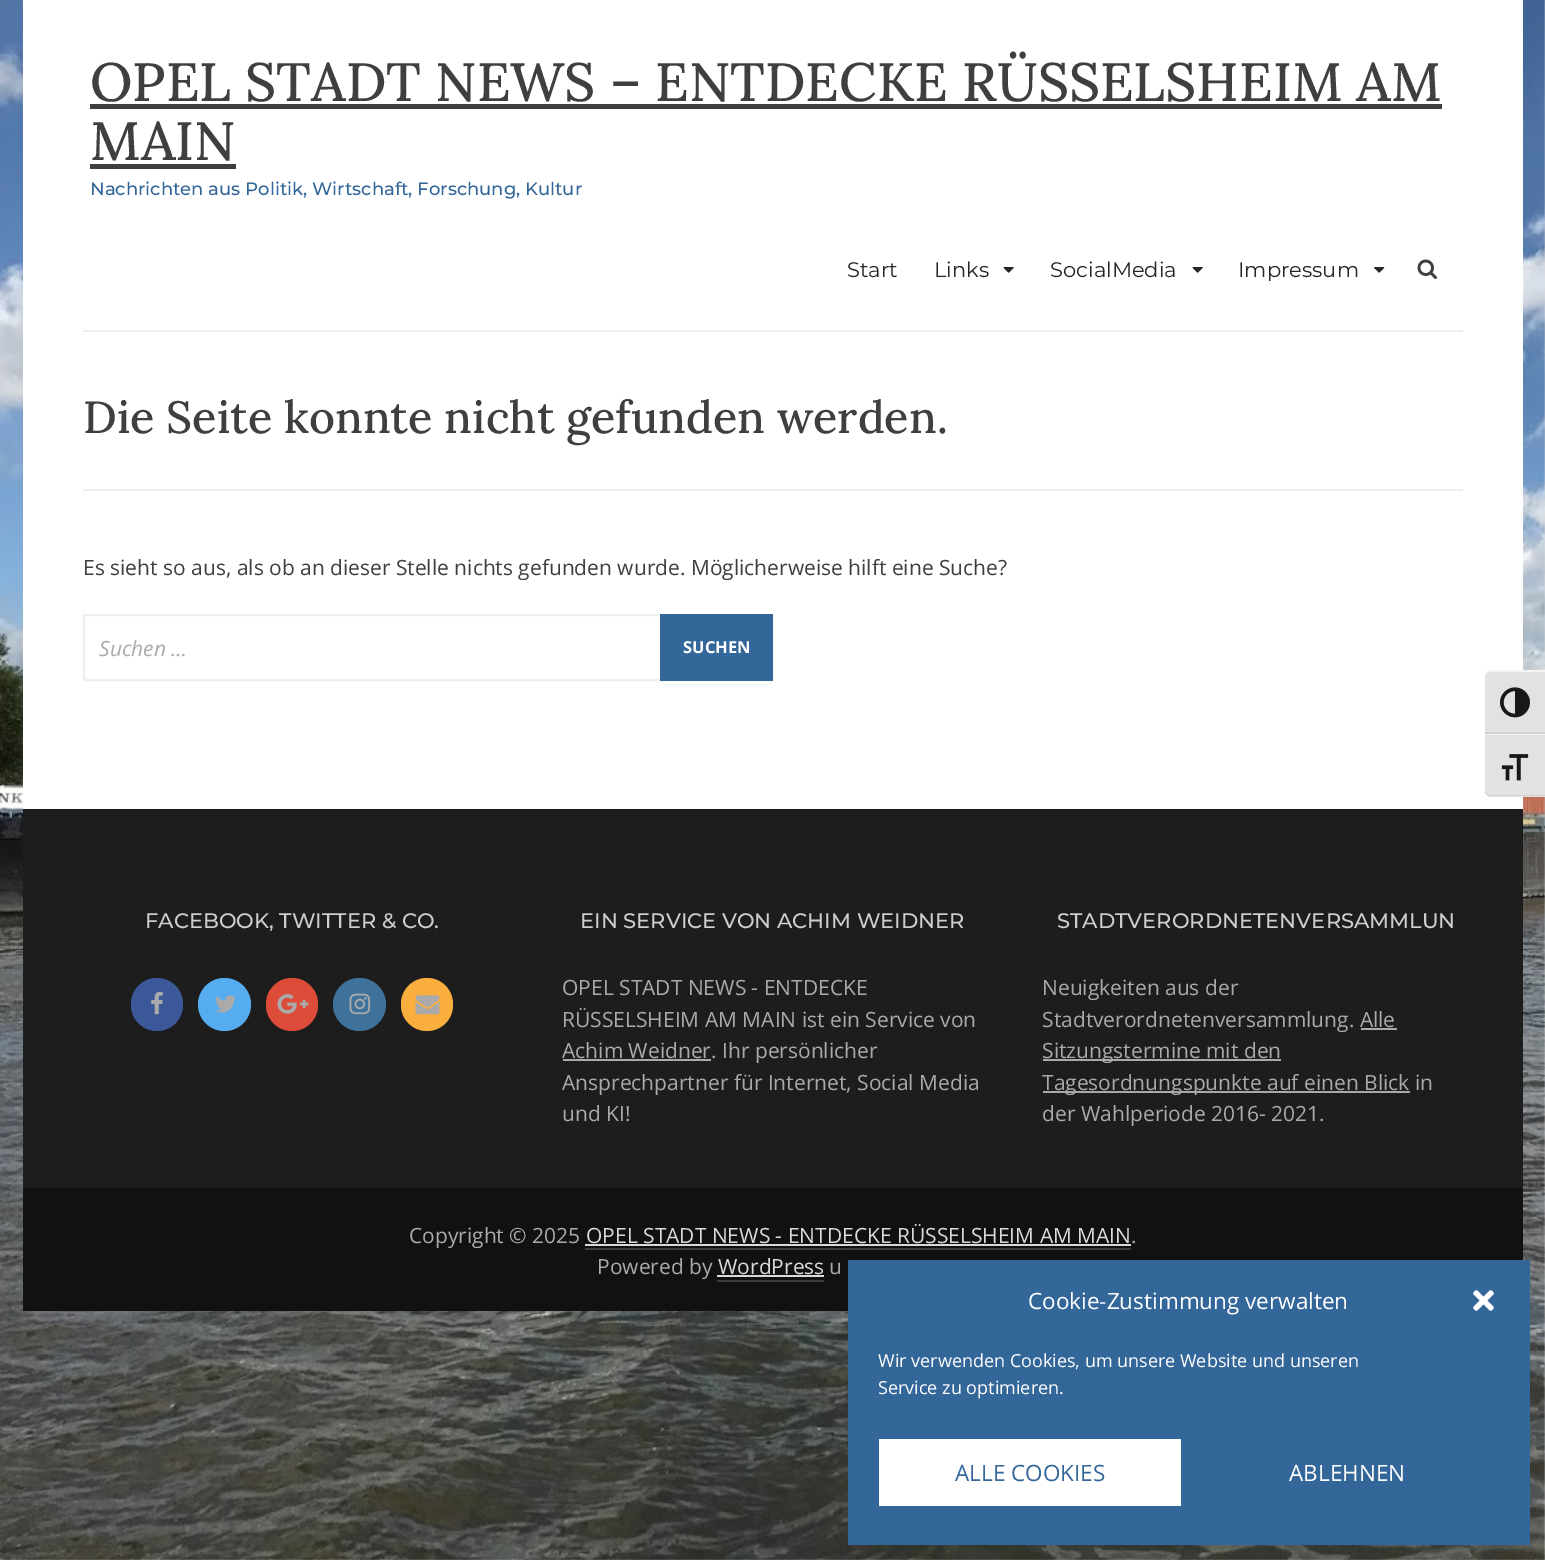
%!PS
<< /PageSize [1545 1560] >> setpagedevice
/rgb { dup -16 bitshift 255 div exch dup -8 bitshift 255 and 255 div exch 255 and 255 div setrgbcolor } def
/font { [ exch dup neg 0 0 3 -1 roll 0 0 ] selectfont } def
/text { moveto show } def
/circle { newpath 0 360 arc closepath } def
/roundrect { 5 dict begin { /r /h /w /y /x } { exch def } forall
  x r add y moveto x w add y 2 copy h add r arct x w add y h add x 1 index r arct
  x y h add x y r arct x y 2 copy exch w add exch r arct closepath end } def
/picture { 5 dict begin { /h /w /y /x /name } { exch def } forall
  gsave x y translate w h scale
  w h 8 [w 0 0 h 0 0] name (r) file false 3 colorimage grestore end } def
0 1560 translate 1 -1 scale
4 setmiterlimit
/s1 { /Lora-Medium 54 font 16#3F3F3F rgb } def
/s2 { /Montserrat-Medium 18 font 16#336699 rgb } def
/s3 { /Montserrat-Regular 21 font 16#262626 rgb } def
/s4 { /Lora-Medium 45 font 16#3F3F3F rgb } def
/s5 { /OpenSans-Regular 21 font 16#3F3F3F rgb } def
/s6 { /OpenSans-Italic 21 font 16#AAAAAA rgb } def
/s7 { /OpenSans-Bold 16.5 font 16#FFFFFF rgb } def
/s8 { /Montserrat-Medium 21 font 16#CECECE rgb } def
/s9 { /OpenSans-Regular 21 font 16#AAAAAA rgb } def
/s10 { /OpenSans-Regular 21 font 16#DADADA rgb } def
/s11 { /OpenSans-Regular 22.5 font 16#FFFFFF rgb } def
/s12 { /OpenSans-Regular 18 font 16#FFFFFF rgb } def
/s13 { /OpenSans-Regular 22.5 font 16#336699 rgb } def
16#DDDDDD rgb
0 0 1545 1560 rectfill
(pic1.raw) 0 0 1545 1560 picture
16#FFFFFF rgb
23 0 1500 809 rectfill
16#EEEEEE rgb
83 330 1380 2 rectfill
s1
(OPEL STADT NEWS – ENTDECKE RÜSSELSHEIM AM) 90 101 text
90 104 1352 5 rectfill
(MAIN) 90 160 text
90 164 146 5 rectfill
s2
(Nachrichten aus Politik, Wirtschaft, Forschung, Kultur) 90 195 text
s3
(Start) 847 277 text
(Links) 934 277 text
(pic2.raw) 1003 267 11 6 picture
(SocialMedia) 1050 277 text
(pic2.raw) 1192 267 11 6 picture
(Impressum) 1238 277 text
(pic3.raw) 1374 267 11 6 picture
(pic4.raw) 1417 259 20 20 picture
16#EEEEEE rgb
83 489 1380 2 rectfill
s4
(Die Seite konnte nicht gefunden werden.) 83 433 text
s5
(Es sieht so aus, als ob an dieser Stelle nichts gefunden wurde. Möglicherweise hilft eine Suche?) 83 575 text
16#EEEEEE rgb
2 setlinewidth
84 615 688 65 rectstroke
s6
(Suchen …) 99 656 text
16#336699 rgb
660 614 113 67 rectfill
s7
(SUCHEN) 683 653 text
16#1D1D1D rgb
23 809 1500 379 rectfill
s8
(FACEBOOK, TWITTER & CO.) 145 928 text
16#3B5999 rgb
131 978 52 53 26 roundrect fill
(pic5.raw) 151 991 12 24 picture
16#55ACEE rgb
224.5 1004.5 26.5 circle fill
(pic6.raw) 215 995 21 18 picture
16#DD4B39 rgb
266 978 52 53 26 roundrect fill
(pic7.raw) 277 994 32 20 picture
16#3F729B rgb
359.5 1004.5 26.5 circle fill
(pic8.raw) 349 993 22 22 picture
16#F9AE3D rgb
401 978 52 53 26 roundrect fill
(pic9.raw) 415 995 25 20 picture
s8
(EIN SERVICE VON ACHIM WEIDNER) 580 928 text
s9
(OPEL STADT NEWS - ENTDECKE) 562 995 text
(RÜSSELSHEIM AM MAIN ist ein Service von) 562 1027 text
563 1059 148 2 rectfill
(Achim Weidner. Ihr persönlicher) 562 1058 text
(Ansprechpartner für Internet, Social Media) 562 1090 text
(und KI!) 562 1121 text
s8
(STADTVERORDNETENVERSAMMLUN) 1057 928 text
s9
(Neuigkeiten aus der) 1042 995 text
(Stadtverordnetenversammlung. Alle) 1042 1027 text
1043 1059 238 2 rectfill
(Sitzungstermine mit den) 1042 1058 text
1043 1091 367 2 rectfill
(Tagesordnungspunkte auf einen Blick in) 1042 1090 text
1361 1028 36 2 rectfill
(der Wahlperiode 2016- 2021.) 1042 1121 text
16#111111 rgb
23 1188 1500 123 rectfill
s9
(Copyright © 2025) 409 1243 text
s10
(OPEL STADT NEWS - ENTDECKE RÜSSELSHEIM AM MAIN) 586 1243 text
16#3C3C3C rgb
585 1248 546 2 rectfill
16#DADADA rgb
585 1244 546 2 rectfill
s9
(.) 1131 1243 text
(Powered by) 597 1274 text
s10
(WordPress) 718 1274 text
16#3C3C3C rgb
717 1280 107 2 rectfill
16#DADADA rgb
717 1275 107 2 rectfill
s9
(u) 829 1274 text
16#E2E2E2 rgb
1491 671 moveto 1545 671 lineto 1545 734 lineto 1485 734 lineto 1485 677 lineto 1485 673.5 1487.5 671 1491 671 curveto closepath fill
16#F5F5F5 rgb
1491 672 moveto 1488 672 1485 674 1485 676 curveto 1485 674 1487 671 1489 670 curveto 1545 670 lineto 1545 672 lineto closepath fill
16#D2D2D2 rgb
1485 732 60 2 rectfill
(pic10.raw) 1500 687 30 31 picture
16#E2E2E2 rgb
1485 734 moveto 1545 734 lineto 1545 797 lineto 1491 797 lineto 1487.5 797 1485 794.5 1485 791 curveto closepath fill
16#F5F5F5 rgb
1485 734 60 1 rectfill
16#D2D2D2 rgb
1545 796 moveto 1545 795 lineto 1491 795 lineto 1488 795 1485 793 1485 790 curveto 1485 794 1488 796 1491 796 curveto closepath fill
(pic11.raw) 1501 754 28 27 picture
16#336699 rgb
848 1260 682 285 rectfill
s11
(Cookie-Zustimmung verwalten) 1028 1309 text
(pic12.raw) 1473 1290 21 21 picture
s12
(Wir verwenden Cookies, um unsere Website und unseren) 878 1367 text
(Service zu optimieren.) 878 1394 text
879 1439 302 67 rectfill
s13
(ALLE COOKIES) 955 1481 text
s11
(ABLEHNEN) 1289 1481 text
showpage
